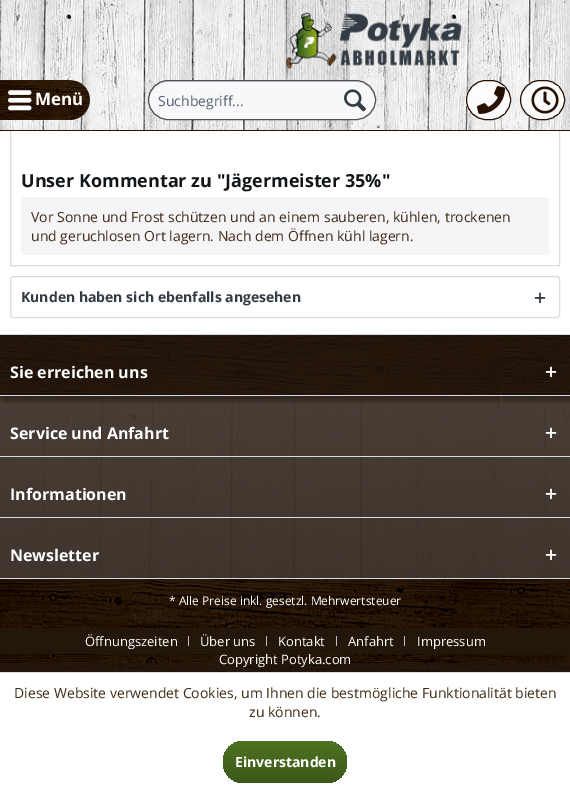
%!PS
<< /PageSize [570 793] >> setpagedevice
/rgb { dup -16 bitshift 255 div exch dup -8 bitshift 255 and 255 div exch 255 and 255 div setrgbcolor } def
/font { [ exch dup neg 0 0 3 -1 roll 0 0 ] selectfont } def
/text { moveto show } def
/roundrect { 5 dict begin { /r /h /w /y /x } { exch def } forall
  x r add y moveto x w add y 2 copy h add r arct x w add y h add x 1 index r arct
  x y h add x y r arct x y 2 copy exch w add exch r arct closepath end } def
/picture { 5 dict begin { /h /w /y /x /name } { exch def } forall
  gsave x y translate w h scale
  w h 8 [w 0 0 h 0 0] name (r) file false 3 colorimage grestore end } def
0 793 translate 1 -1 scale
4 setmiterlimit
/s1 { /OpenSans-Bold 17 font 16#FFFFFF rgb } def
/s2 { /OpenSans-Regular 14 font 16#546271 rgb } def
/s3 { /OpenSans-Bold 18 font 16#121619 rgb } def
/s4 { /OpenSans-Regular 14 font 16#402B17 rgb } def
/s5 { /OpenSans-Bold 14 font 16#333C45 rgb } def
/s6 { /OpenSans-Bold 16 font 16#FFFFFF rgb } def
/s7 { /OpenSans-Regular 12 font 16#FFFFFF rgb } def
/s8 { /OpenSans-Regular 13 font 16#FFFFFF rgb } def
/s9 { /OpenSans-Bold 14 font 16#FFFFFF rgb } def
16#FFFFFF rgb
0 0 570 793 rectfill
16#DADAE5 rgb
10.5 -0.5 549 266 rectstroke
(pic1.raw) 0 0 570 130 picture
16#271103 rgb
0 130 570 1 rectfill
(pic2.raw) 286 12 176 57 picture
(pic3.raw) 0 80 90 40 picture
(pic4.raw) 8 90 24 21 picture
s1
(Menü) 35 105 text
16#F8F8FA rgb
148 80 228 40 20 roundrect fill
16#DADAE5 rgb
168 82 moveto 356 82 lineto 366 82 375 91 375 101 curveto 375 100 lineto 375 90 366 81 356 81 curveto 168 81 lineto 158 81 149 90 149 100 curveto 149 101 lineto 149 91 158 82 168 82 curveto closepath fill
16#505050 rgb
148.5 80.5 227 39 19.5 roundrect stroke
s2
(Suchbegriff...) 158 106 text
(pic5.raw) 344 89 22 23 picture
gsave
466 80 45 40 20 roundrect clip newpath
gsave 466 81 moveto 511 81 lineto 511 119 lineto 466 119 lineto closepath clip newpath
<< /ShadingType 2 /ColorSpace /DeviceRGB /Coords [489 81 489 119] /Extend [true true] /Function << /FunctionType 2 /Domain [0 1] /C0 [1 1 1] /C1 [0.973 0.973 0.98] /N 1 >> >> shfill grestore
grestore
16#271103 rgb
466.5 80.5 44 39 19.5 roundrect stroke
(pic6.raw) 477 86 28 28 picture
gsave
520 80 45 40 20 roundrect clip newpath
gsave 520 81 moveto 565 81 lineto 565 119 lineto 520 119 lineto closepath clip newpath
<< /ShadingType 2 /ColorSpace /DeviceRGB /Coords [543 81 543 119] /Extend [true true] /Function << /FunctionType 2 /Domain [0 1] /C0 [1 1 1] /C1 [0.973 0.973 0.98] /N 1 >> >> shfill grestore
grestore
520.5 80.5 44 39 19.5 roundrect stroke
(pic7.raw) 531 86 28 28 picture
s3
(Unser Kommentar zu "Jägermeister 35%") 21 187 text
16#F5F5F8 rgb
21 197 528 58 3 roundrect fill
s4
(Vor Sonne und Frost schützen und an einem sauberen, kühlen, trockenen) 31 222 text
(und geruchlosen Ort lagern. Nach dem Öffnen kühl lagern.) 31 241 text
16#DADAE5 rgb
10.5 276.5 549 41 2.5 roundrect stroke
s5
(Kunden haben sich ebenfalls angesehen) 21 302 text
(pic8.raw) 534 292 12 12 picture
(pic9.raw) 0 335 570 337 picture
16#DADAE5 rgb
0 334 570 1 rectfill
s6
(Sie erreichen uns) 10 378 text
(pic10.raw) 545 366 12 12 picture
16#DADAE5 rgb
0 395 570 1 rectfill
s6
(Service und Anfahrt) 10 439 text
(pic11.raw) 545 427 12 12 picture
16#DADAE5 rgb
0 456 570 1 rectfill
s6
(Informationen) 10 500 text
(pic12.raw) 545 488 12 12 picture
16#DADAE5 rgb
0 517 570 1 rectfill
0 578 570 1 rectfill
s6
(Newsletter) 10 561 text
(pic13.raw) 545 549 12 12 picture
(pic14.raw) 0 579 570 84 picture
s7
(* Alle Preise inkl. gesetzl. Mehrwertsteuer) 169 605 text
16#23170C rgb
0 628 570 26 rectfill
s8
(Öffnungszeiten) 85 646 text
16#BCBCD0 rgb
188 636 1 10 rectfill
s8
(Über uns) 200 646 text
16#BCBCD0 rgb
266 636 1 10 rectfill
s8
(Kontakt) 278 646 text
16#BCBCD0 rgb
336 636 1 10 rectfill
s8
(Anfahrt) 348 646 text
16#BCBCD0 rgb
404 636 1 10 rectfill
s8
(Impressum) 417 646 text
(Copyright Potyka.com) 219 664 text
16#DADAE5 rgb
0 672 570 1 rectfill
s4
(Diese Website verwendet Cookies, um Ihnen die bestmögliche Funktionalität bieten) 14 698 text
(zu können.) 249 717 text
gsave 223 741 124 42 20 roundrect clip newpath
<< /ShadingType 2 /ColorSpace /DeviceRGB /Coords [285 741 285 783] /Extend [true true] /Function << /FunctionType 2 /Domain [0 1] /C0 [0.306 0.447 0.133] /C1 [0.235 0.345 0.098] /N 1 >> >> shfill grestore
s9
(Einverstanden) 235 767 text
showpage
